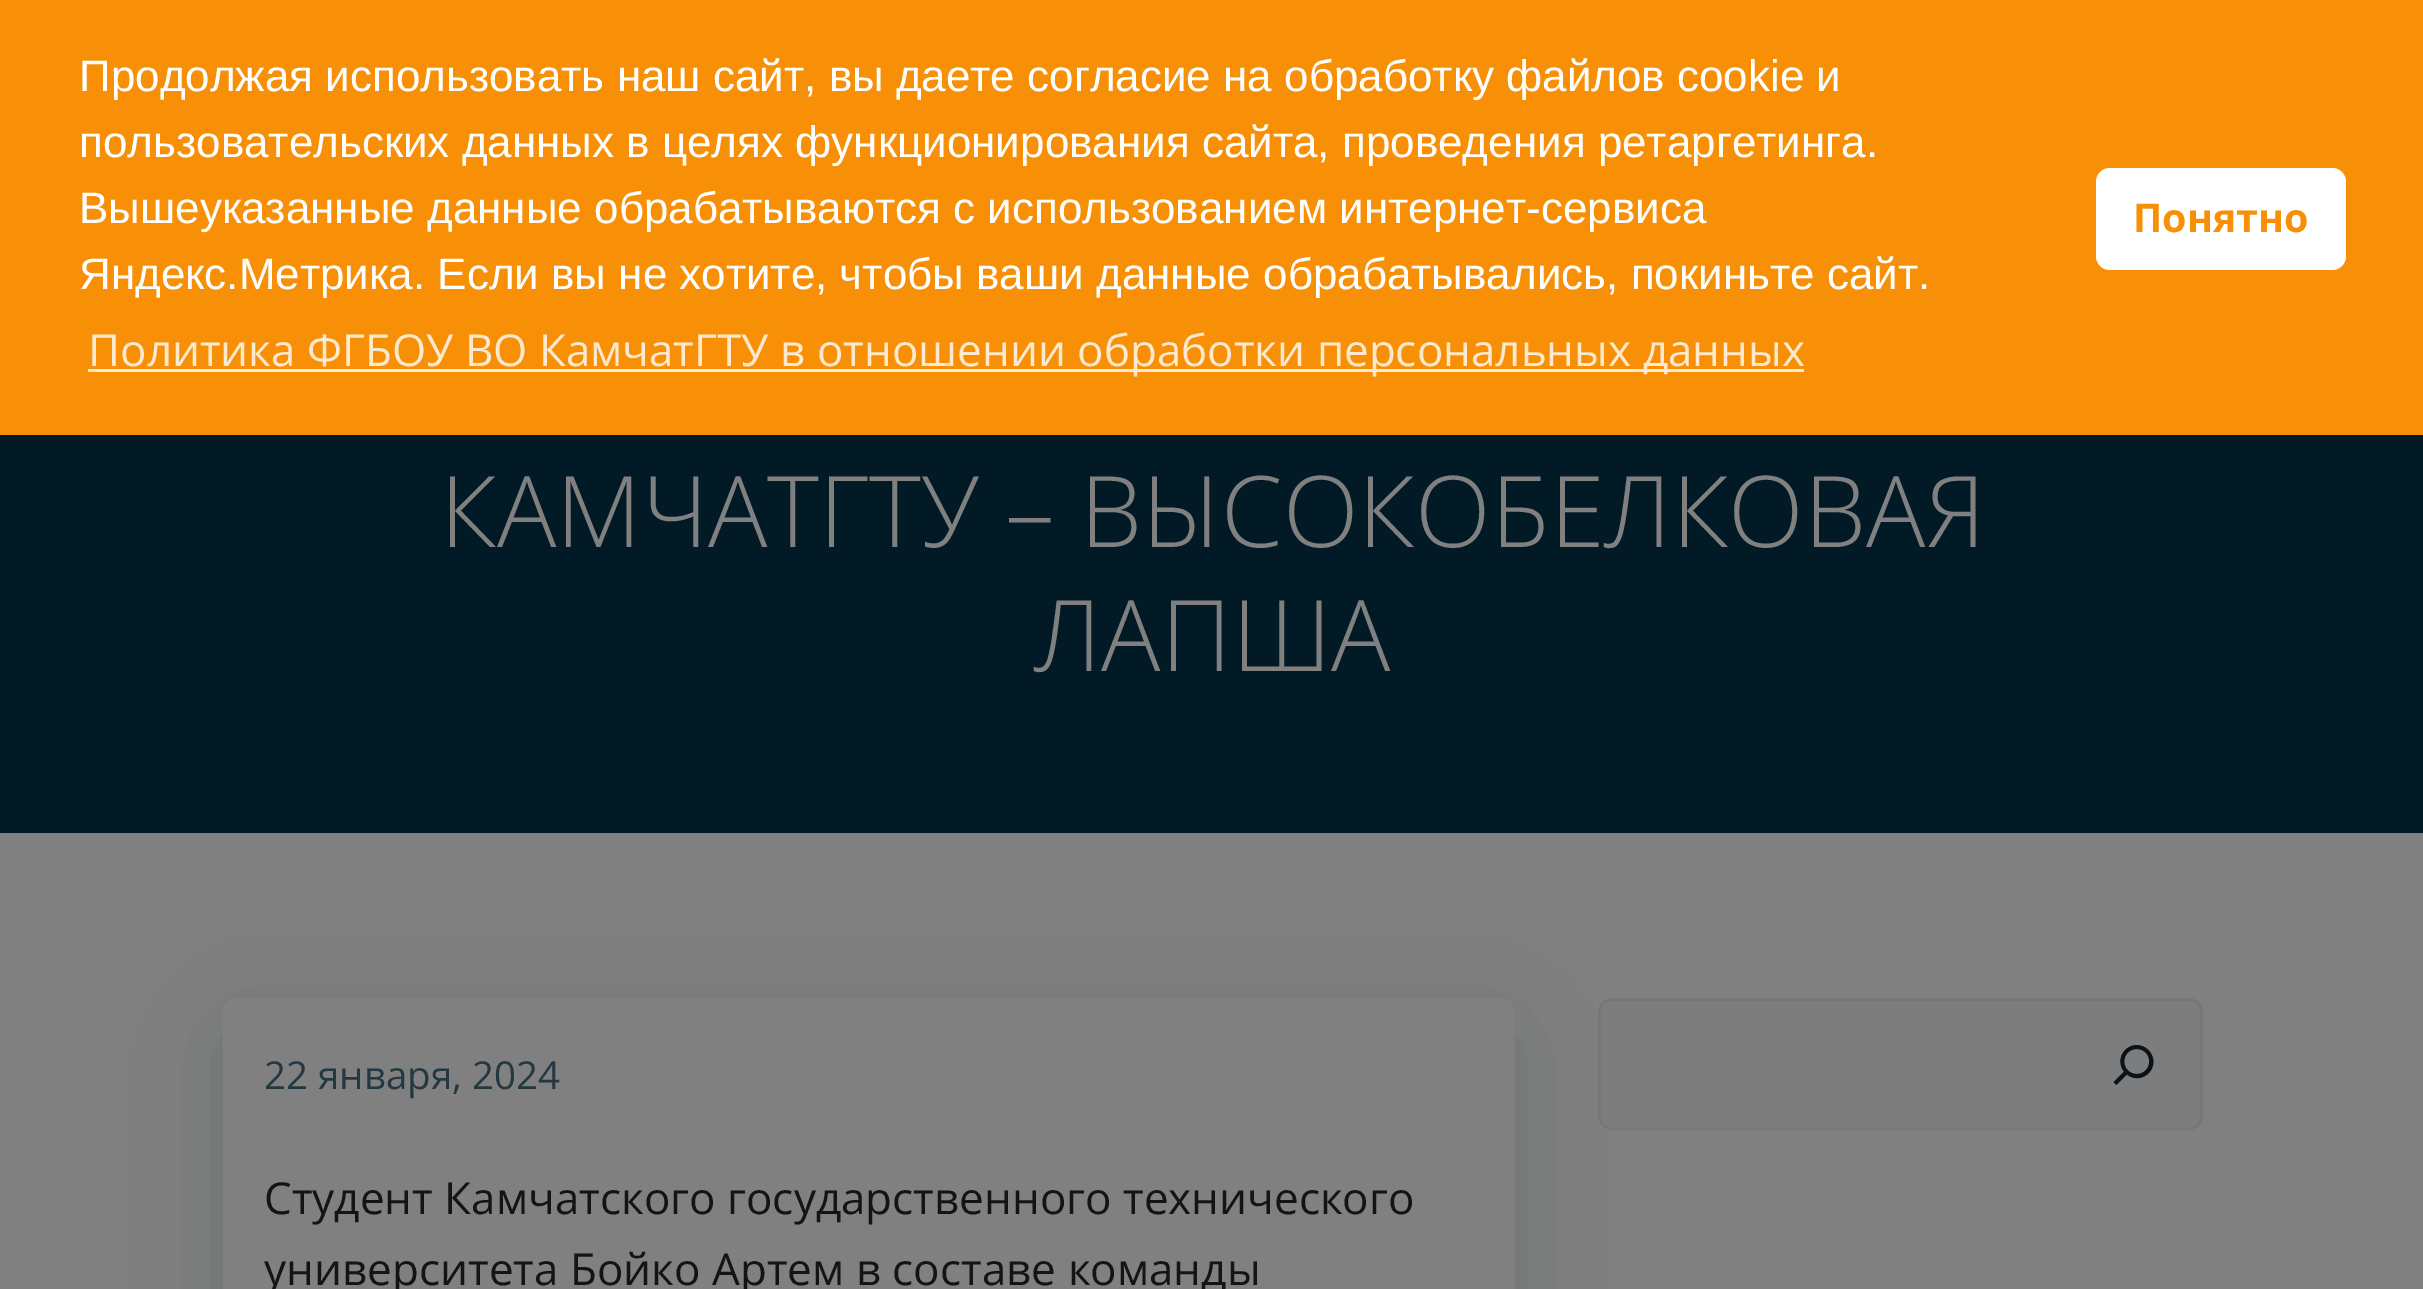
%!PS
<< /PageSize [2423 1289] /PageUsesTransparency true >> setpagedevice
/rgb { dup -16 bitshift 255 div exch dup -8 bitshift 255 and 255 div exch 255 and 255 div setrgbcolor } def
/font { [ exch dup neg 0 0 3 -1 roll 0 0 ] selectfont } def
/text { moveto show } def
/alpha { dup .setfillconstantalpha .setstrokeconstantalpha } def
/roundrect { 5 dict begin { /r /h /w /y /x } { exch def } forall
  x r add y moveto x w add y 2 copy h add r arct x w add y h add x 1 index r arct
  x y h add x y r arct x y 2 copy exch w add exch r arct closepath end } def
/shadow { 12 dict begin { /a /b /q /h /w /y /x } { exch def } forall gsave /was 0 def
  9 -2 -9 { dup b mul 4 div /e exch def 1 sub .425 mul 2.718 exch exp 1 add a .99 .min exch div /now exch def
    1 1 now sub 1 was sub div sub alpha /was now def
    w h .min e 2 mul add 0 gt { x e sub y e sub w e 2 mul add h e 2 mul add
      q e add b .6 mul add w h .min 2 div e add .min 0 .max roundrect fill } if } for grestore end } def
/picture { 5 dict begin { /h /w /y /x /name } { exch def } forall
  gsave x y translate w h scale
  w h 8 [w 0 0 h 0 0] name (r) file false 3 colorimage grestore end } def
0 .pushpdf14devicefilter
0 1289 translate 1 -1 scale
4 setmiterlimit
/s1 { /LiberationSans-Regular 44 font 16#FFFFFF rgb } def
/s2 { /OpenSans-Regular 44 font 16#FDE9CD rgb } def
/s3 { /OpenSans-Bold 39.5 font 16#F79007 rgb } def
/s4 { /OpenSans-Light 99 font 16#808080 rgb } def
/s5 { /OpenSans-Regular 38.5 font 16#233840 rgb } def
/s6 { /OpenSans-Regular 44 font 16#131515 rgb } def
16#808080 rgb
0 0 2423 1289 rectfill
16#F79007 rgb
0 0 2423 435 rectfill
s1
(Продолжая использовать наш сайт, вы даете согласие на обработку файлов cookie и) 79 91 text
(пользовательских данных в целях функционирования сайта, проведения ретаргетинга.) 79 157 text
(Вышеуказанные данные обрабатываются с использованием интернет-сервиса) 79 223 text
(Яндекс.Метрика. Если вы не хотите, чтобы ваши данные обрабатывались, покиньте сайт.) 79 289 text
16#FDE9CD rgb
88 369 1716 3 rectfill
s2
(Политика ФГБОУ ВО КамчатГТУ в отношении обработки персональных данных) 88 366 text
16#FFFFFF rgb
2096 168 250 102 14 roundrect fill
s3
(Понятно) 2133 232 text
16#011A25 rgb
0 435 2423 398 rectfill
s4
(КАМЧАТГТУ – ВЫСОКОБЕЛКОВАЯ) 440 547 text
(ЛАПША) 1034 671 text
16#011A25 rgb
223 1026 1292 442 14 55 0.15 shadow
16#808080 rgb
223 998 1292 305 14 roundrect fill
s5
(22 января, 2024) 264 1089 text
s6
(Студент Камчатского государственного технического) 264 1214 text
(университета Бойко Артем в составе команды) 264 1285 text
16#777777 rgb
3 setlinewidth
1599.5 999.5 602 129 12.5 roundrect stroke
16#7D7D7E rgb
1615 1001 moveto 2068 1001 lineto 2068 1128 lineto 1615 1128 lineto 1607.5 1128 1601 1121.5 1601 1114 curveto 1601 1015 lineto 1601 1007.5 1607.5 1001 1615 1001 curveto closepath fill
2068 1001 moveto 2186 1001 lineto 2193.5 1001 2200 1007.5 2200 1015 curveto 2200 1114 lineto 2200 1121.5 2193.5 1128 2186 1128 curveto 2068 1128 lineto closepath fill
(pic1.raw) 2113 1045 41 40 picture
.poppdf14devicefilter showpage
